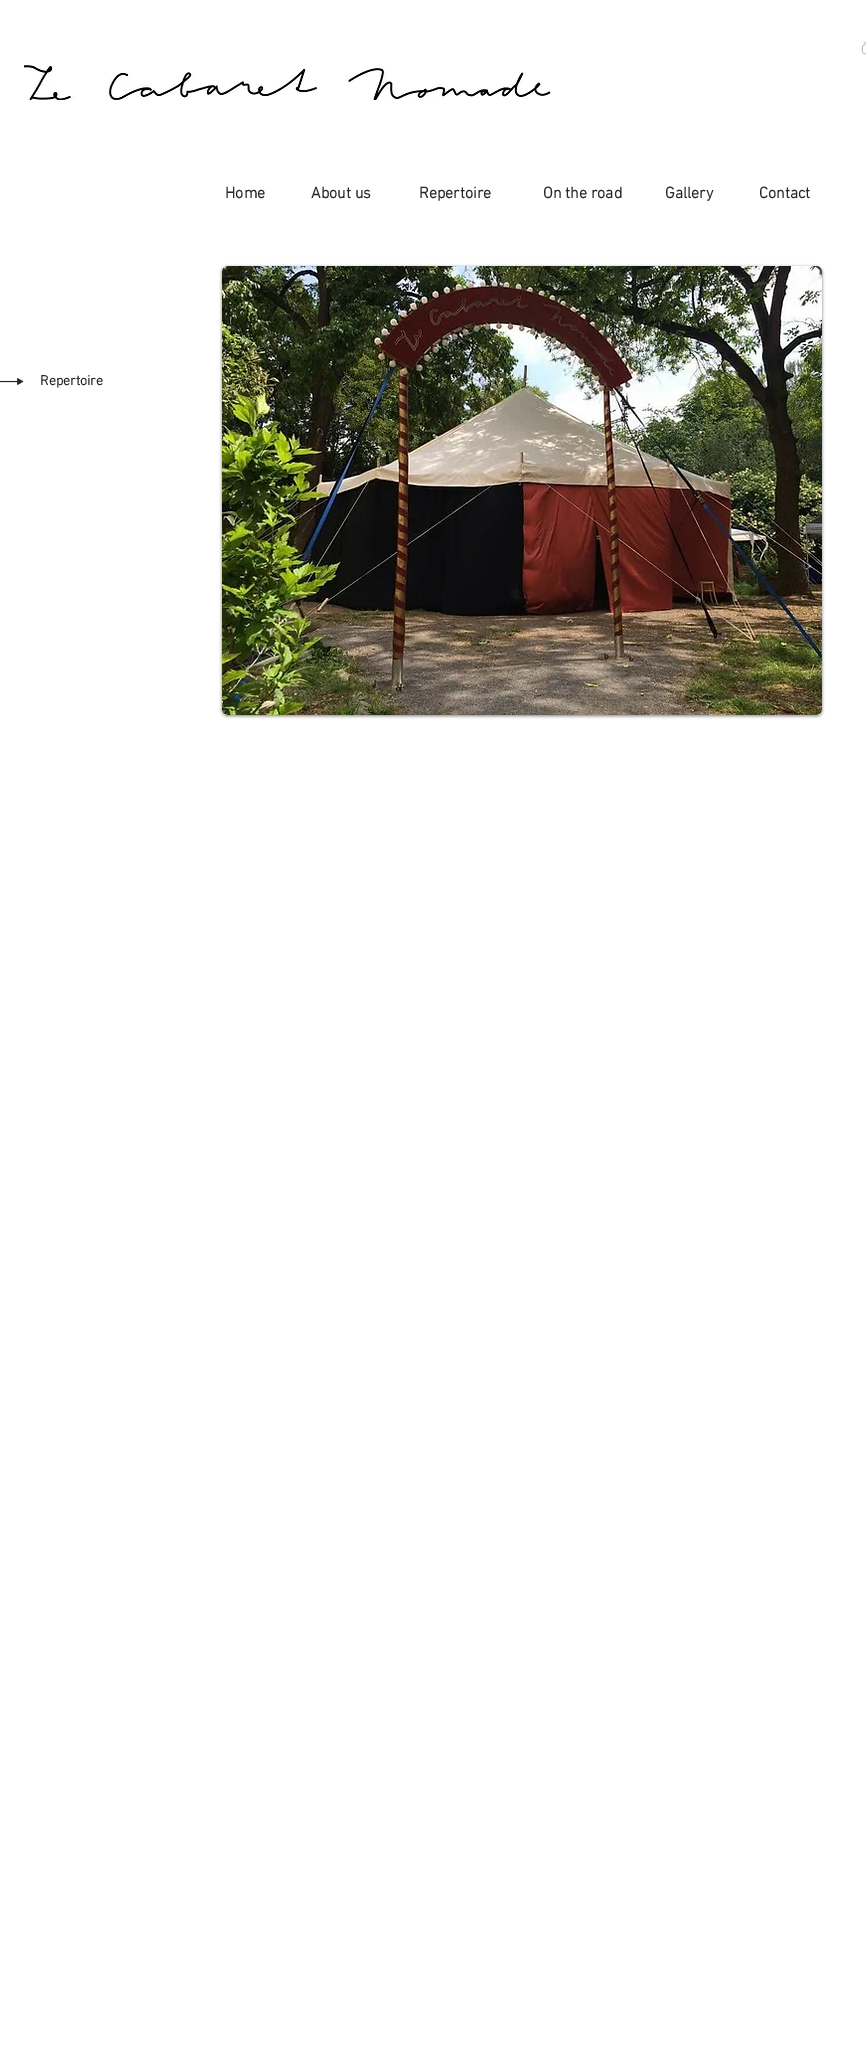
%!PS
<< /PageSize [866 2053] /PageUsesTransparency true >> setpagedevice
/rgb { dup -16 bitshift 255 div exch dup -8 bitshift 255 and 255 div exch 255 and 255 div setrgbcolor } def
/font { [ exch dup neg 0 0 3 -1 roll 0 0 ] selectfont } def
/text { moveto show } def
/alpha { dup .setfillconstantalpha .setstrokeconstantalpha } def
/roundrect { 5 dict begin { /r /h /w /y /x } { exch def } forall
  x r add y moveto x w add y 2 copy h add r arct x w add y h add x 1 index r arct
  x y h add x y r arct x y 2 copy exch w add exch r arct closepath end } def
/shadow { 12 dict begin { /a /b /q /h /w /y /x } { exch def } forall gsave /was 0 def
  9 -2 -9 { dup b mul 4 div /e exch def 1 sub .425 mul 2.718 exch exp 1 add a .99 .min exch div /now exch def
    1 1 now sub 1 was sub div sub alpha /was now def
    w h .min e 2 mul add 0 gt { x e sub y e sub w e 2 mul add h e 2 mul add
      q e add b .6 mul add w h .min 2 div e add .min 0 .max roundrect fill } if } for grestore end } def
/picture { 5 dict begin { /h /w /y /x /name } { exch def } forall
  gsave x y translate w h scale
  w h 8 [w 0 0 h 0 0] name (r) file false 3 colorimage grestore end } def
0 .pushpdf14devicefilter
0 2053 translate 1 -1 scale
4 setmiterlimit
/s1 { /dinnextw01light-Light 14 font 16#A1A4A5 rgb } def
/s2 { /dinnextw01light-Bold 16 font 16#262728 rgb } def
/s3 { /dinnextw01light-Bold 14 font 16#262728 rgb } def
16#FFFFFF rgb
0 0 866 2053 rectfill
s1
(Č) 861 54 text
(pic1.raw) 23 64 528 36 picture
s2
(Home) 225 198 text
(About us) 311 198 text
(Repertoire) 419 198 text
(On the road) 543 198 text
(Gallery) 665 198 text
(Contact) 759 198 text
(pic2.raw) 0 378 24 7 picture
s3
(Repertoire) 40 385 text
16#000000 rgb
222 267 600 449 5 1.5 0.5 shadow
16#FFFFFF rgb
222 266 600 449 5 roundrect fill
(pic3.raw) 222 266 600 449 picture
.poppdf14devicefilter showpage
